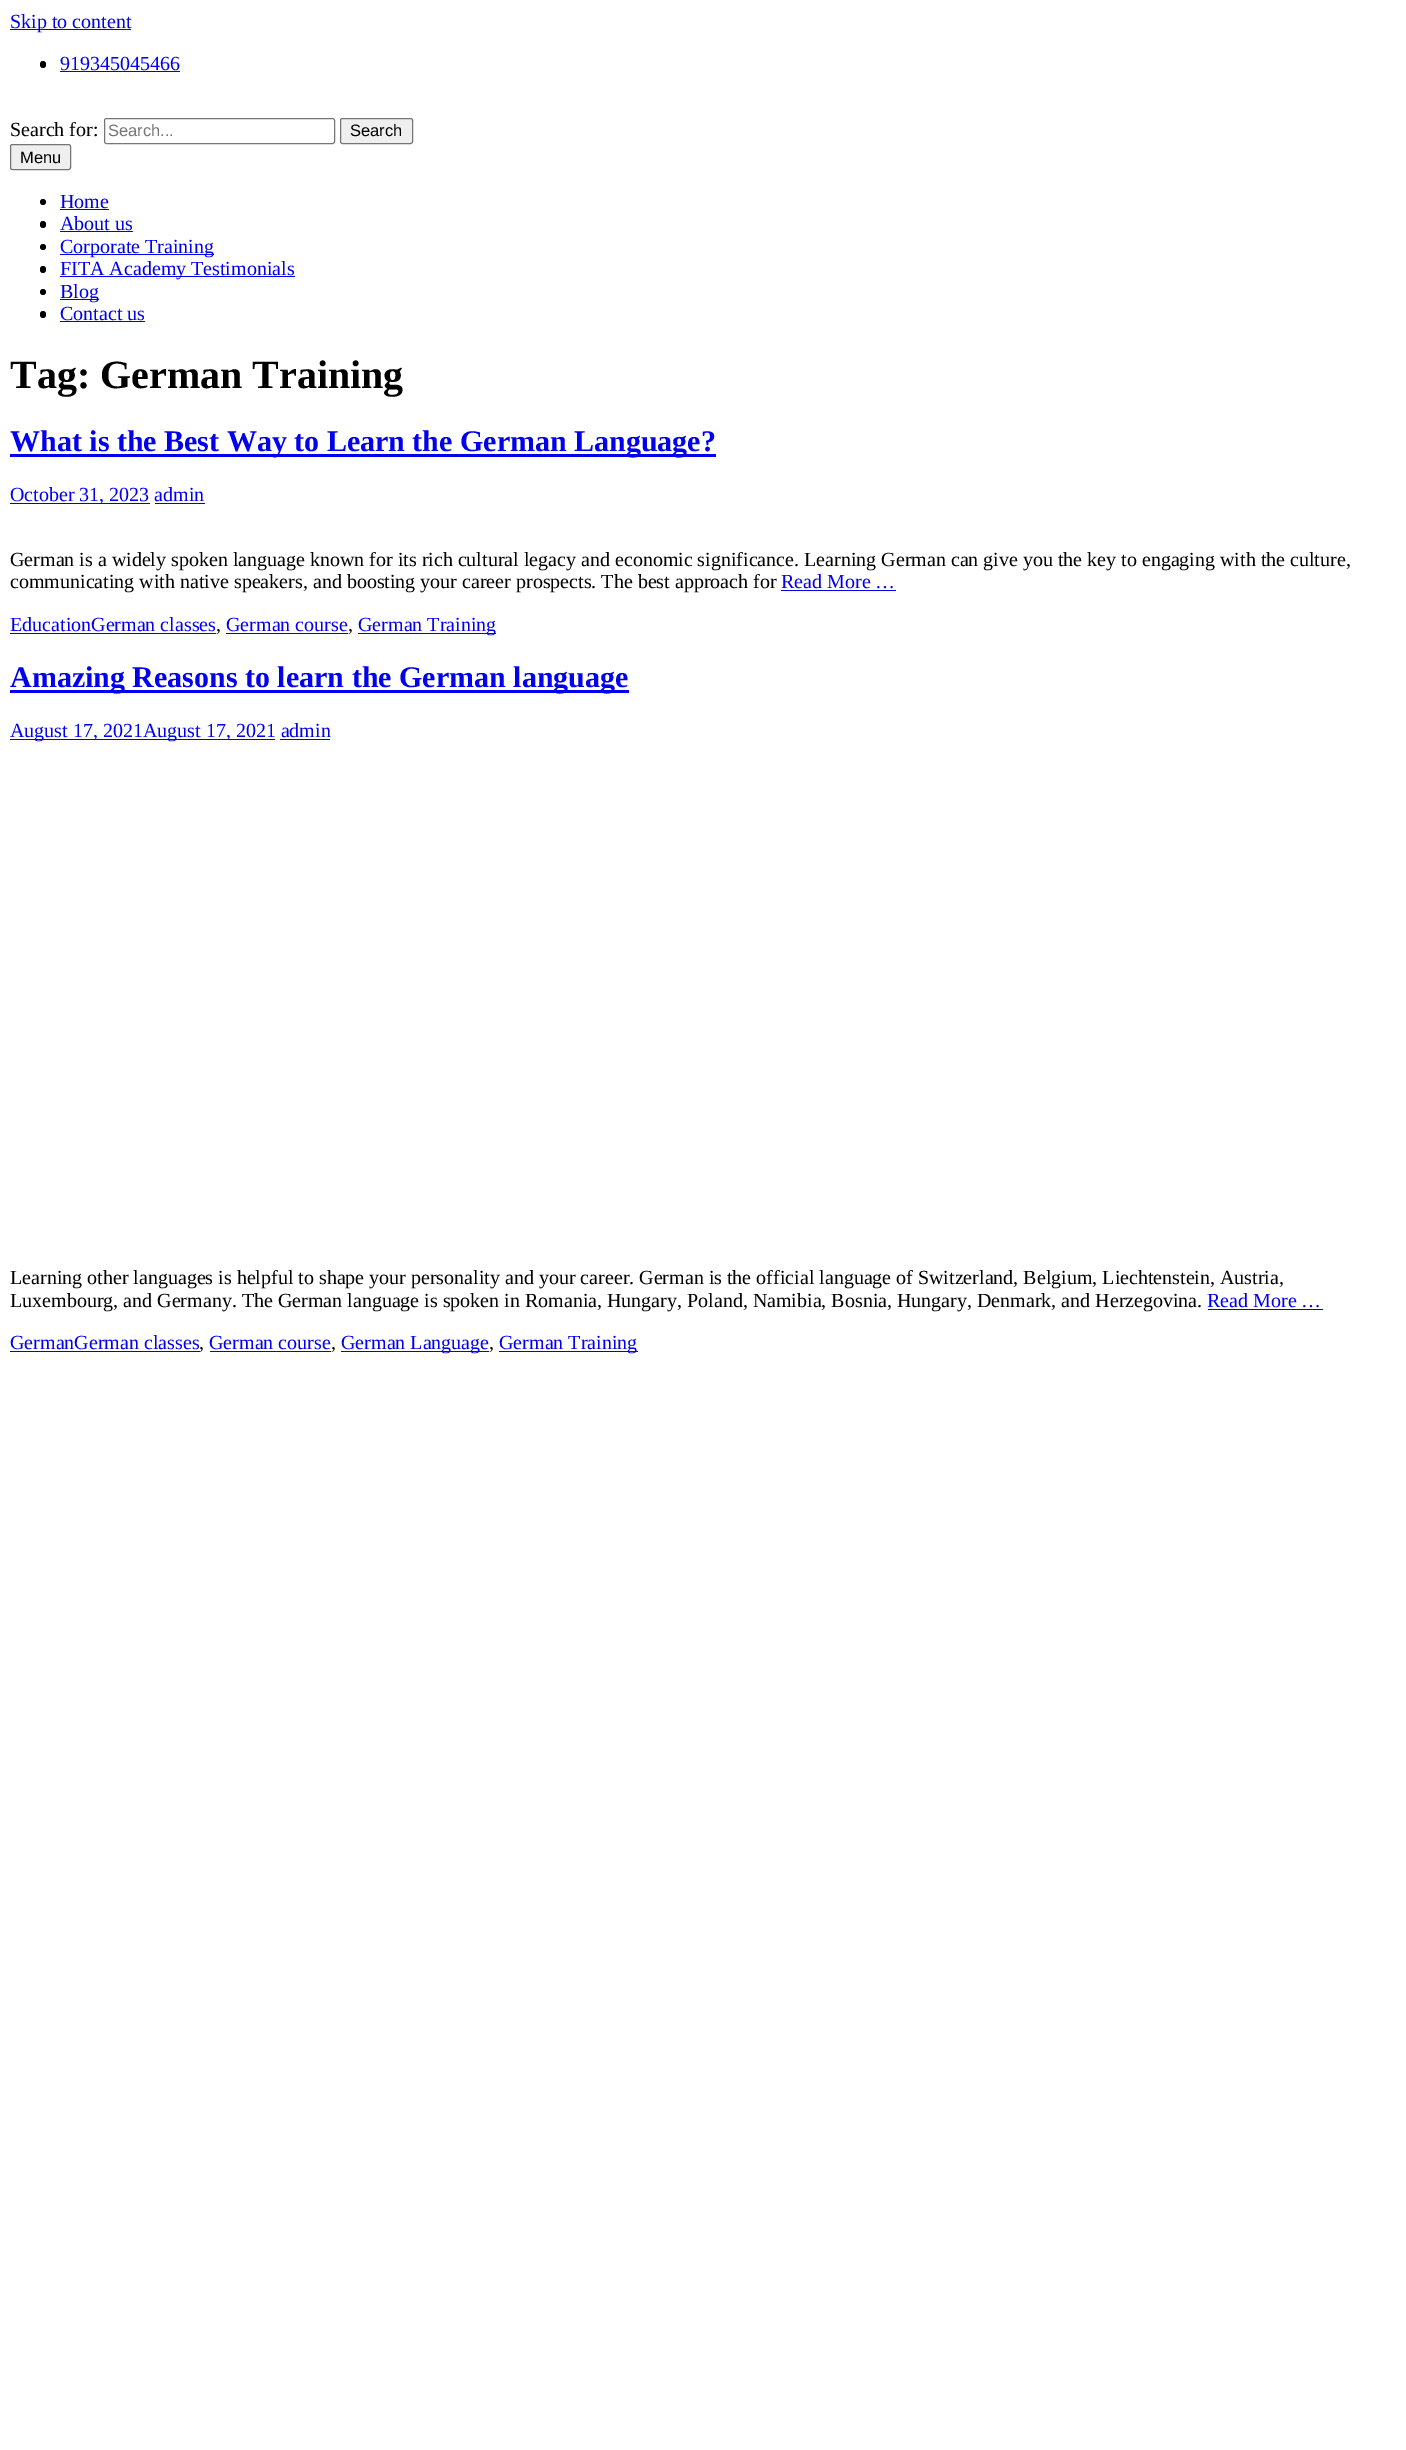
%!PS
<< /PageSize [1406 2450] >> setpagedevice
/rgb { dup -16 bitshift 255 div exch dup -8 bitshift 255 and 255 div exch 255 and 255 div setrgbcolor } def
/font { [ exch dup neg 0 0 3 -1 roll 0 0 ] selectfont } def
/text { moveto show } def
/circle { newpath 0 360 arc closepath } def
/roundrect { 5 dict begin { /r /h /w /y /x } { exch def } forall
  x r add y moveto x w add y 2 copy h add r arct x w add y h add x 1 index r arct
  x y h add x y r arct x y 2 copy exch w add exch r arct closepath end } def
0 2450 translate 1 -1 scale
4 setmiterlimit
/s1 { /LiberationSerif-Regular 20 font 16#0000EE rgb } def
/s2 { /LiberationSerif-Regular 20 font 16#000000 rgb } def
/s3 { /LiberationSans-Regular 16.5 font 16#757575 rgb } def
/s4 { /LiberationSans-Regular 16.5 font 16#000000 rgb } def
/s5 { /LiberationSerif-Bold 40 font 16#000000 rgb } def
/s6 { /LiberationSerif-Bold 30 font 16#0000EE rgb } def
16#FFFFFF rgb
0 0 1406 2450 rectfill
16#0000EE rgb
10 29 121 1 rectfill
s1
(Skip to content) 10 28 text
16#000000 rgb
40 61 6 7 3 roundrect fill
s1
(919345045466) 60 70 text
60 71 120 1 rectfill
s2
(Search for:) 10 136 text
16#767676 rgb
104.5 118.5 230 25 2 roundrect stroke
s3
(Search...) 108 136 text
16#EFEFEF rgb
340.5 118.5 72 25 2 roundrect gsave fill grestore
16#767676 rgb
stroke
s4
(Search) 350 136 text
16#EFEFEF rgb
10.5 144.5 60 25 2 roundrect gsave fill grestore
16#767676 rgb
stroke
s4
(Menu) 20 163 text
43 202 3 circle fill
s1
(Home) 60 208 text
60 209 49 1 rectfill
16#000000 rgb
40 221 6 7 3 roundrect fill
s1
(About us) 60 230 text
60 231 73 1 rectfill
16#000000 rgb
43 247 3 circle fill
16#0000EE rgb
60 254 154 1 rectfill
(Corporate Training) 60 253 text
16#000000 rgb
40 266 6 7 3 roundrect fill
16#0000EE rgb
60 276 235 1 rectfill
(FITA Academy Testimonials) 60 275 text
16#000000 rgb
43 292 3 circle fill
16#0000EE rgb
60 299 39 1 rectfill
(Blog) 60 298 text
16#000000 rgb
40 311 6 7 3 roundrect fill
s1
(Contact us) 60 320 text
60 321 85 1 rectfill
s5
(Tag: German Training) 10 388 text
16#0000EE rgb
10 454 706 3 rectfill
s6
(What is the Best Way to Learn the German Language?) 10 451 text
10 503 140 1 rectfill
s1
(October 31, 2023 admin) 10 501 text
155 503 50 1 rectfill
s2
(German is a widely spoken language known for its rich cultural legacy and economic significance. Learning German can give you the key to engaging with the culture,) 10 566 text
(communicating with native speakers, and boosting your career prospects. The best approach for) 10 588 text
s1
(Read More …) 781 588 text
781 590 115 1 rectfill
(EducationGerman classes) 10 631 text
10 633 206 1 rectfill
s2
(,) 216 631 text
s1
(German course) 226 631 text
s2
(,) 348 631 text
16#0000EE rgb
226 633 122 1 rectfill
358 633 138 1 rectfill
(German Training) 358 631 text
10 690 619 3 rectfill
s6
(Amazing Reasons to learn the German language) 10 687 text
10 739 265 1 rectfill
s1
(August 17, 2021August 17, 2021 admin) 10 737 text
280 739 50 1 rectfill
s2
(Learning other languages is helpful to shape your personality and your career. German is the official language of Switzerland, Belgium, Liechtenstein, Austria,) 10 1284 text
(Luxembourg, and Germany. The German language is spoken in Romania, Hungary, Poland, Namibia, Bosnia, Hungary, Denmark, and Herzegovina.) 10 1307 text
s1
(Read More …) 1207 1307 text
1208 1309 115 1 rectfill
(GermanGerman classes) 10 1349 text
10 1351 190 1 rectfill
s2
(,) 199 1349 text
s1
(German course) 209 1349 text
s2
(,) 331 1349 text
16#0000EE rgb
210 1351 121 1 rectfill
341 1351 148 1 rectfill
(German Language) 341 1349 text
s2
(,) 489 1349 text
16#0000EE rgb
499 1351 139 1 rectfill
(German Training) 499 1349 text
showpage
